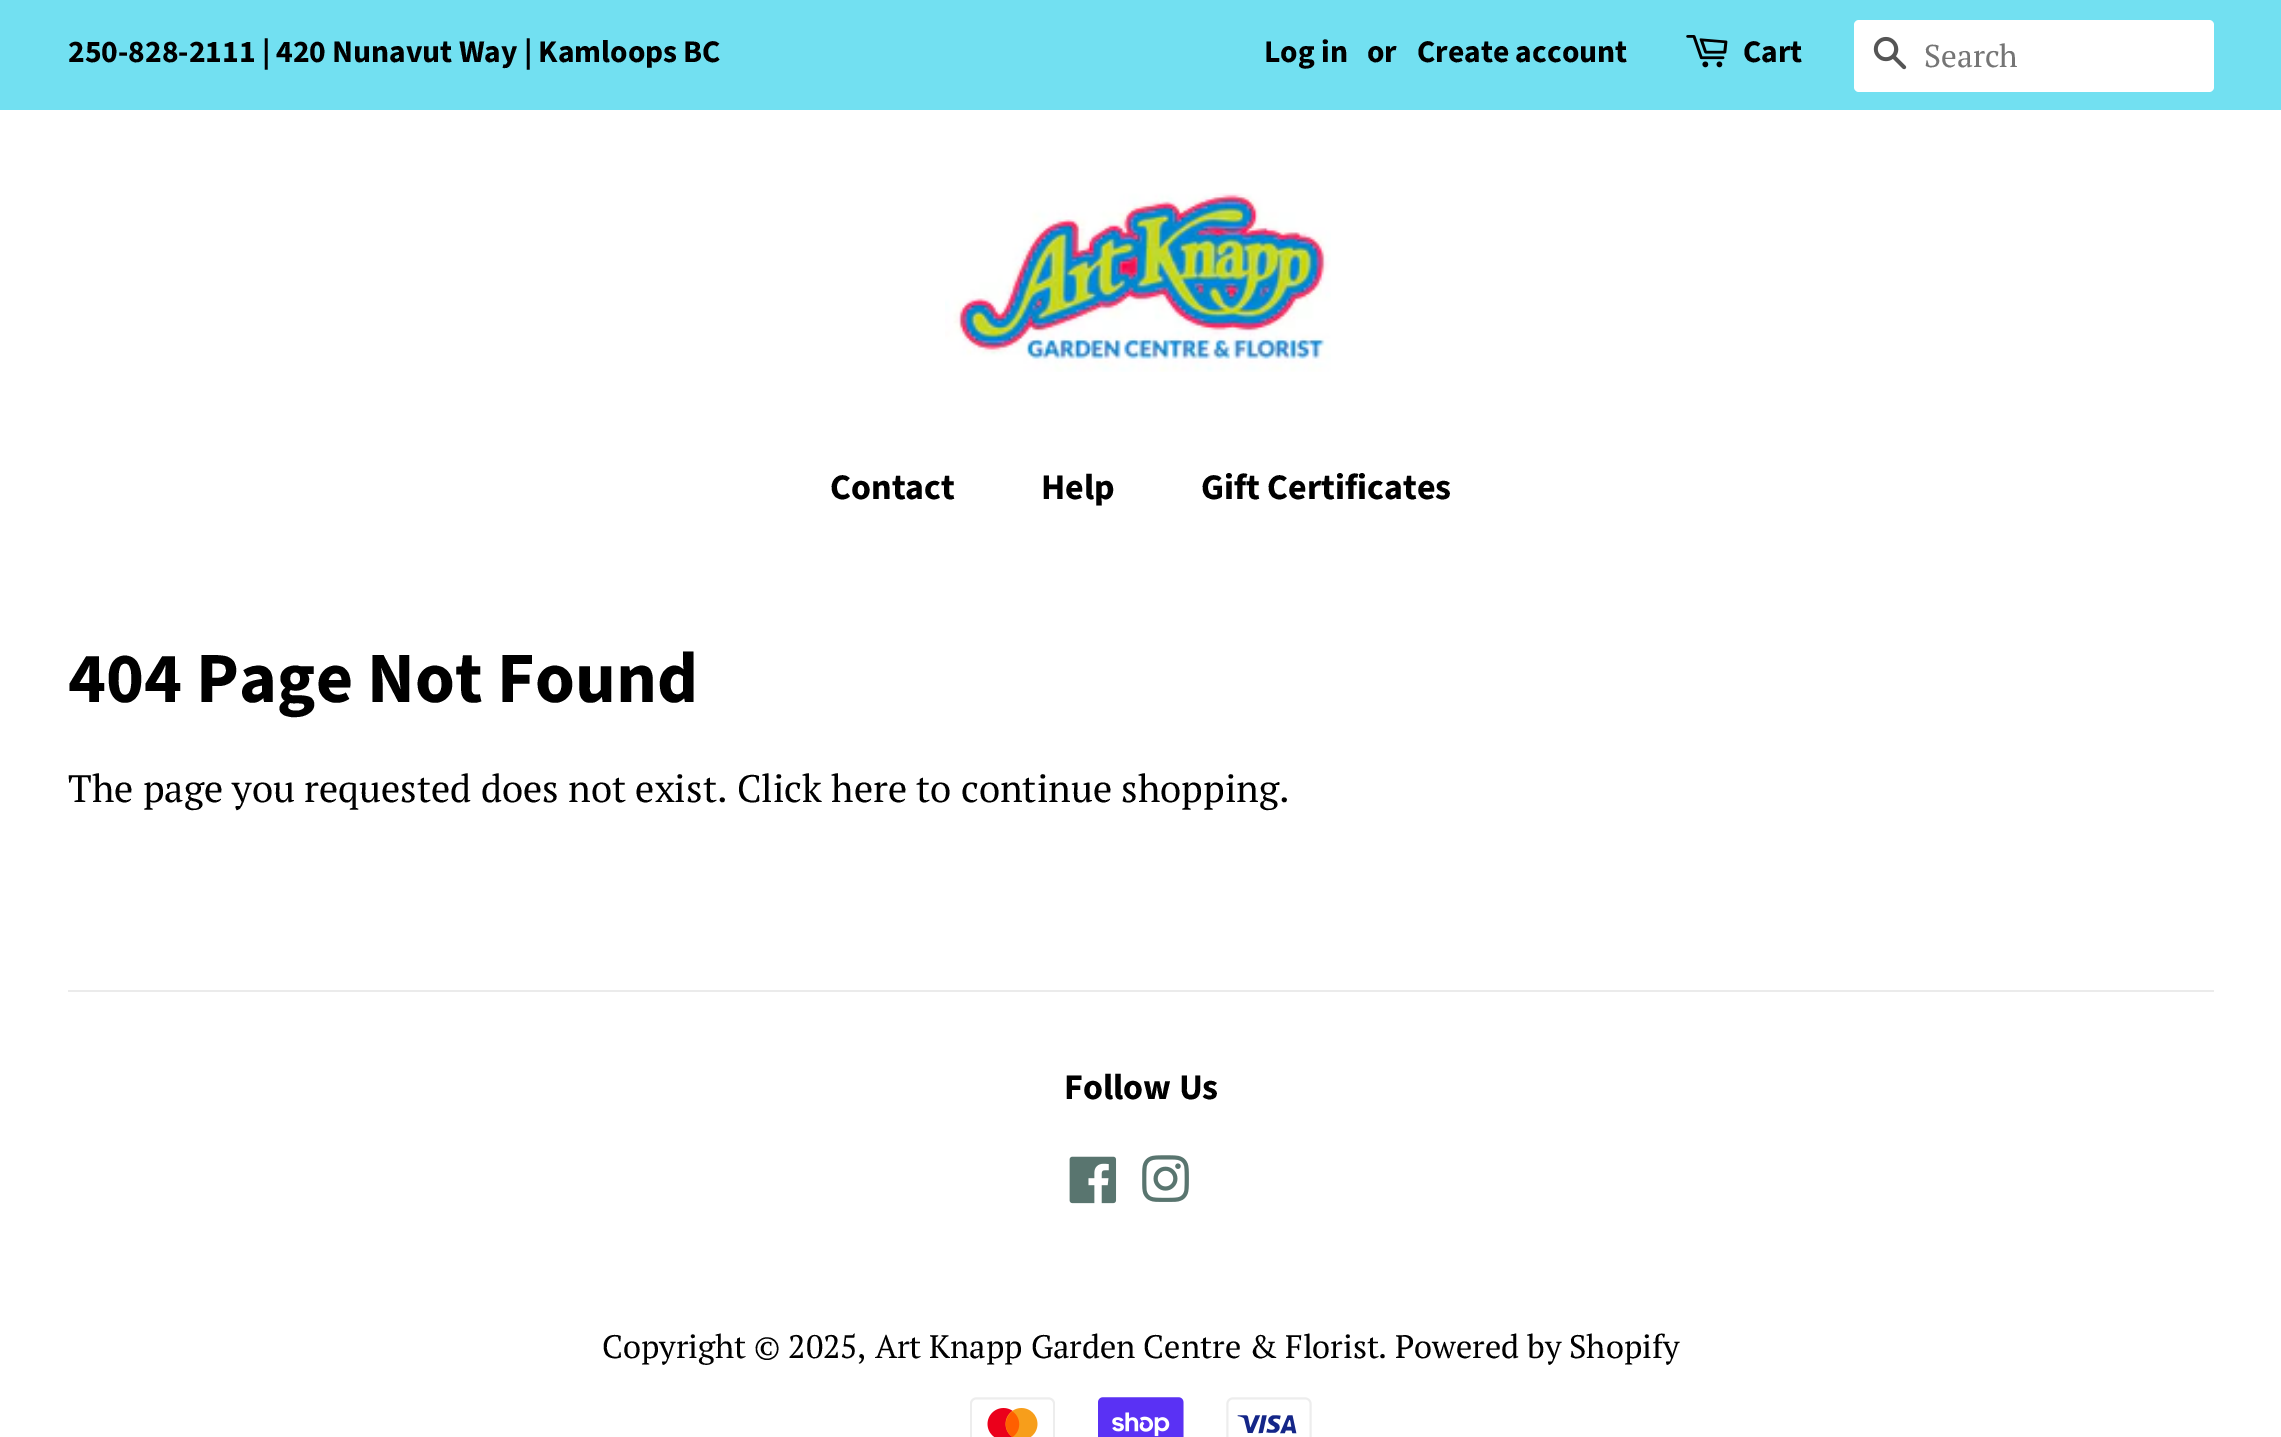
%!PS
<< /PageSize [2281 1437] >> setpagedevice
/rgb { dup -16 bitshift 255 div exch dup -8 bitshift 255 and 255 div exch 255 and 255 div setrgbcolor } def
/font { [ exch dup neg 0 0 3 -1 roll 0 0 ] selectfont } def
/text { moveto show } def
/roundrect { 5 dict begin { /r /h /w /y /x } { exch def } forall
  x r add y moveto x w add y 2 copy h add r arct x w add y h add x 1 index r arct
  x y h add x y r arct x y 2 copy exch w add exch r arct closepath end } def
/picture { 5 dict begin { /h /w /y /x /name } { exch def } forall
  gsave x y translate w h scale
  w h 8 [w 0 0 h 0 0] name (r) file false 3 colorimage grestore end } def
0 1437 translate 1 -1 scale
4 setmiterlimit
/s1 { /SourceSansPro-Bold 31.5 font 16#000000 rgb } def
/s2 { /PTSerif-Regular 31.5 font 16#757575 rgb } def
/s3 { /SourceSansPro-Bold 36 font 16#000000 rgb } def
/s4 { /SourceSansPro-Bold 72 font 16#000000 rgb } def
/s5 { /PTSerif-Regular 38.25 font 16#000000 rgb } def
/s6 { /PTSerif-Regular 32.5 font 16#000000 rgb } def
16#FFFFFF rgb
0 0 2281 1437 rectfill
16#72E0F1 rgb
0 0 2281 110 rectfill
s1
(250-828-2111 | 420 Nunavut Way | Kamloops BC) 68 62 text
(Log in) 1264 62 text
(or) 1367 62 text
(Create account) 1417 62 text
(pic1.raw) 1686 35 42 33 picture
(Cart) 1743 62 text
16#FFFFFF rgb
1854 20 360 72 5 roundrect fill
(pic2.raw) 1873 36 34 34 picture
s2
(Search) 1924 67 text
(pic3.raw) 945 193 386 179 picture
s3
(Contact) 830 499 text
(Help) 1041 499 text
(Gift Certificates) 1201 499 text
s4
(404 Page Not Found) 68 702 text
s5
(The page you requested does not exist. Click here to continue shopping.) 68 802 text
16#EBEBEB rgb
68 990 2146 2 rectfill
s3
(Follow Us) 1064 1099 text
(pic4.raw) 1069 1156 48 48 picture
(pic5.raw) 1142 1155 47 47 picture
s6
(Copyright © 2025, Art Knapp Garden Centre & Florist) 602 1358 text
(. Powered by Shopify) 1378 1358 text
(pic6.raw) 970 1397 85 40 picture
(pic7.raw) 1098 1397 86 40 picture
(pic8.raw) 1226 1397 86 40 picture
showpage
